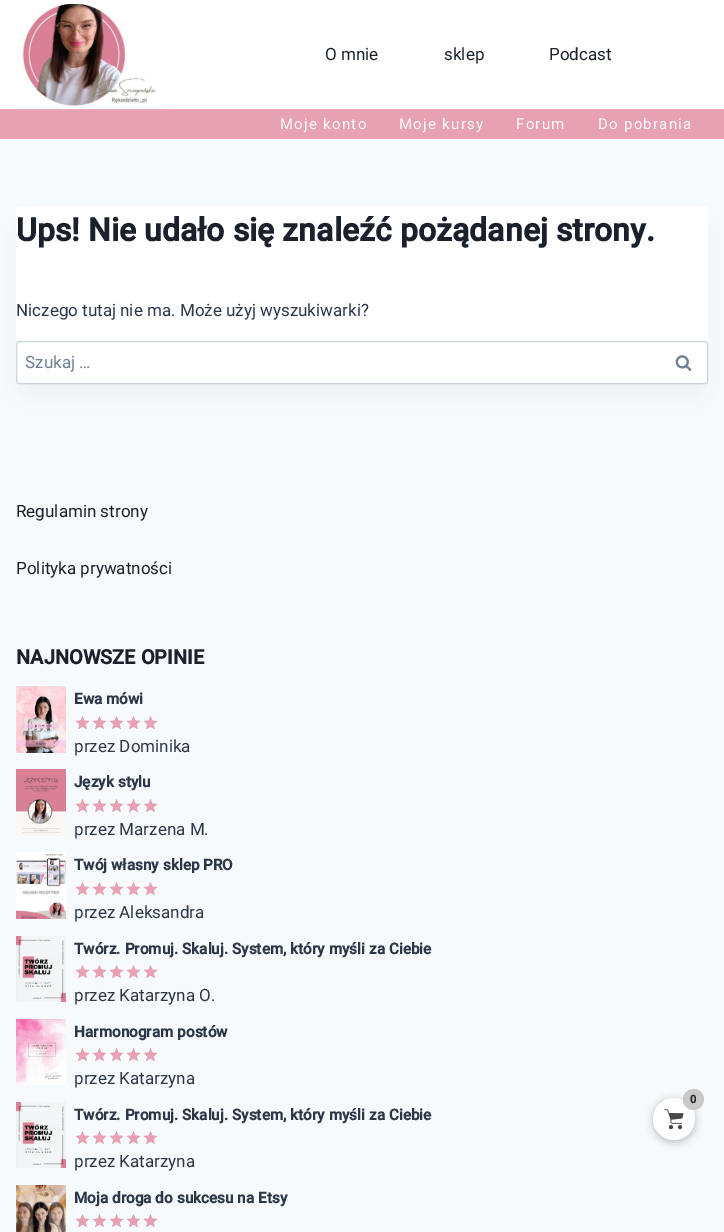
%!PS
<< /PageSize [724 1232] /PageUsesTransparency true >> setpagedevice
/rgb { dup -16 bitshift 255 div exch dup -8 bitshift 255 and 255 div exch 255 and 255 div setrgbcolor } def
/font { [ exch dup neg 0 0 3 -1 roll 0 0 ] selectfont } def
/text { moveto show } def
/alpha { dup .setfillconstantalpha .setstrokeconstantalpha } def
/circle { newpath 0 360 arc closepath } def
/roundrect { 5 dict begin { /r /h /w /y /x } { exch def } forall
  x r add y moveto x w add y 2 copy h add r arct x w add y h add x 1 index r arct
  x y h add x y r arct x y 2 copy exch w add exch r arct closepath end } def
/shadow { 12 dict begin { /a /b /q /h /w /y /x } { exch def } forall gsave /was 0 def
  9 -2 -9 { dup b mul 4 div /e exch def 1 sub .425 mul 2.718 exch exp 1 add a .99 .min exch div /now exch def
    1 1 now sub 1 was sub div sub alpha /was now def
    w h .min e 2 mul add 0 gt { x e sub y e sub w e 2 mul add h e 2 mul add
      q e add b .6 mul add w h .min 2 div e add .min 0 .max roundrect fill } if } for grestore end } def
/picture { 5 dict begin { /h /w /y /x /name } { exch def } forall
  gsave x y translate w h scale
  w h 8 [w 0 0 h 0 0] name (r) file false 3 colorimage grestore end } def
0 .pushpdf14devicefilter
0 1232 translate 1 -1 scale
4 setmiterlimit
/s1 { /Roboto-Regular 17 font 16#1A202C rgb } def
/s2 { /Roboto-Bold 32 font 16#1A202C rgb } def
/s3 { /Roboto-Regular 17 font 16#2D3748 rgb } def
/s4 { /Roboto-Regular 17 font 16#718096 rgb } def
/s5 { /Roboto-Bold 20 font 16#1A202C rgb } def
/s6 { /Roboto-Bold 15.3 font 16#2D3748 rgb } def
/s7 { /Roboto-Bold 11 font 16#282828 rgb } def
16#F7FAFC rgb
0 0 724 1232 rectfill
16#FFFFFF rgb
0 0 724 109 rectfill
16#E8A1B3 rgb
0 109 724 30 rectfill
(pic1.raw) 16 2 158 108 picture
s1
(O mnie) 325 60 text
(sklep) 444 60 text
(Podcast) 549 60 text
/Roboto-Regular 15 font
16#F7FAFC rgb
280 129 moveto 1.25 0 (Moje konto) ashow
399 129 moveto 1.25 0 (Moje kursy) ashow
516 129 moveto 1.25 0 (Forum) ashow
598 129 moveto 1.25 0 (Do pobrania) ashow
16#000000 rgb
26 231 672 158 0 12.5 0.05 shadow
16#FFFFFF rgb
16 206 692 178 4 roundrect fill
s2
(Ups! Nie udało się znaleźć pożądanej strony.) 16 241 text
s3
(Niczego tutaj nie ma. Może użyj wyszukiwarki?) 16 316 text
16#FFFFFF rgb
16.5 341.5 691 42 2.5 roundrect gsave fill grestore
16#CBD5E0 rgb
stroke
s4
(Szukaj …) 25 368 text
(pic2.raw) 675 355 17 16 picture
s1
(Regulamin strony) 16 517 text
(Polityka prywatności) 16 574 text
s5
(NAJNOWSZE OPINIE) 16 664 text
(pic3.raw) 16 686 50 67 picture
s6
(Ewa mówi) 74 704 text
(pic4.raw) 75 716 83 13 picture
(pic5.raw) 75 716 83 14 picture
s3
(przez Dominika) 74 752 text
(pic6.raw) 16 769 50 67 picture
s6
(Język stylu) 74 787 text
(pic4.raw) 75 799 83 13 picture
(pic5.raw) 75 799 83 14 picture
s3
(przez Marzena M.) 74 835 text
(pic7.raw) 16 852 50 67 picture
s6
(Twój własny sklep PRO) 74 870 text
(pic4.raw) 75 882 83 13 picture
(pic5.raw) 75 882 83 14 picture
s3
(przez Aleksandra) 74 918 text
(pic8.raw) 16 936 50 66 picture
s6
(Twórz. Promuj. Skaluj. System, który myśli za Ciebie) 74 954 text
(pic4.raw) 75 965 83 13 picture
(pic5.raw) 75 965 83 14 picture
s3
(przez Katarzyna O.) 74 1001 text
(pic9.raw) 16 1019 50 66 picture
s6
(Harmonogram postów) 74 1037 text
(pic4.raw) 75 1048 83 13 picture
(pic5.raw) 75 1048 83 14 picture
s3
(przez Katarzyna) 74 1084 text
(pic10.raw) 16 1102 50 66 picture
s6
(Twórz. Promuj. Skaluj. System, który myśli za Ciebie) 74 1120 text
(pic4.raw) 75 1131 83 13 picture
(pic5.raw) 75 1131 83 14 picture
s3
(przez Katarzyna) 74 1167 text
(pic11.raw) 16 1185 50 47 picture
s6
(Moja droga do sukcesu na Etsy) 74 1203 text
(pic4.raw) 75 1214 83 13 picture
(pic5.raw) 75 1214 83 14 picture
16#000000 rgb
653 1100 42 42 21 4 0.25 shadow
16#FFFFFF rgb
674 1119 21 circle fill
(pic12.raw) 664 1109 20 21 picture
16#C9C9C9 rgb
693.5 1099.5 10.5 circle fill
s7
(0) 690 1103 text
.poppdf14devicefilter showpage
